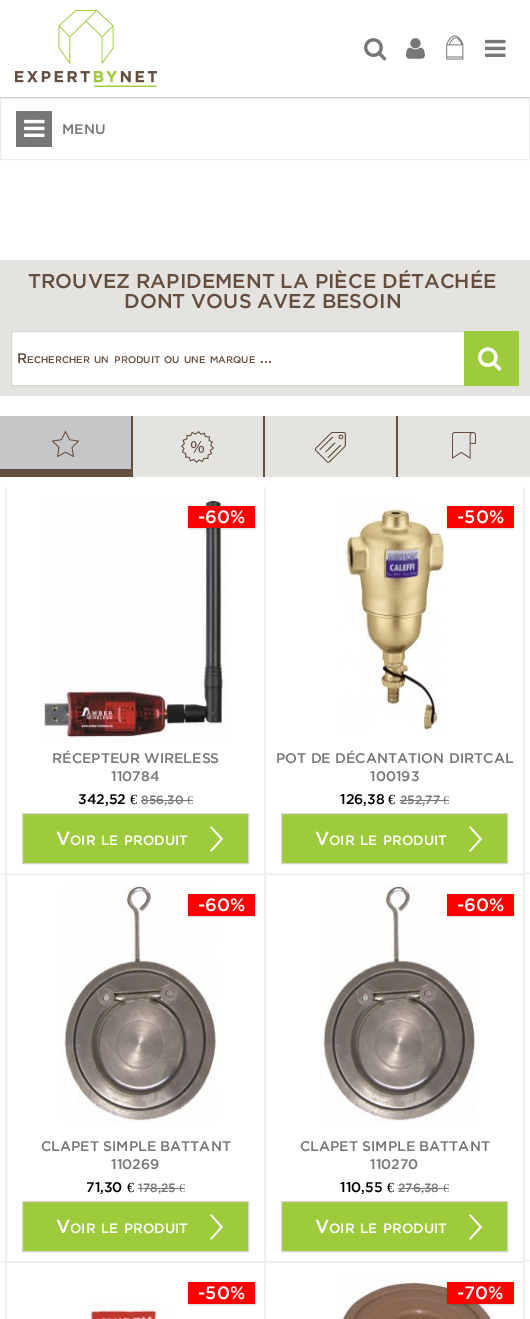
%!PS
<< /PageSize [530 1319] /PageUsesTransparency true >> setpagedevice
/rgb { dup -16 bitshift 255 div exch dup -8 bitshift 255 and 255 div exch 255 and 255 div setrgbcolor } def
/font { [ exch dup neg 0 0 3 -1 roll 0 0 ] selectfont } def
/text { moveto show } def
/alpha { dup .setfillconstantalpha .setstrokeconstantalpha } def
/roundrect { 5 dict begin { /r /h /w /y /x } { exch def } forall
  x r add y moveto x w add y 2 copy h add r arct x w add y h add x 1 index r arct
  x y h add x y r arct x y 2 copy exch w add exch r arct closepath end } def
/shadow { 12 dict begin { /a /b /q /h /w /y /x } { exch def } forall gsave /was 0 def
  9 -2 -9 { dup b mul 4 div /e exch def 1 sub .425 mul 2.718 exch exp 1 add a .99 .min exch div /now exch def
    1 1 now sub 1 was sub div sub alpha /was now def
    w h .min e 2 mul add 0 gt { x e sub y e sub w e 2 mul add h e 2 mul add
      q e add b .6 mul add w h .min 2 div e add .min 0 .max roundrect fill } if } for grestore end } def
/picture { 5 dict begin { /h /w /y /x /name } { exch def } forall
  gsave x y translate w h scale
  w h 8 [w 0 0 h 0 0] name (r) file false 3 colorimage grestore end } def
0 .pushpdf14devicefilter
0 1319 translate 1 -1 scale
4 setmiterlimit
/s1 { /Gotham-Medium 14 font 16#777777 rgb } def
/s2 { /Gotham-Medium 20 font 16#644E40 rgb } def
/s3 { /Gotham-Medium 14 font 16#644E40 rgb } def
/s4 { /Gotham-Medium 9.75 font 16#644E40 rgb } def
/s5 { /Gotham-Medium 18 font 16#FFFFFF rgb } def
/s6 { /Gotham-Medium 14 font 16#000000 rgb } def
/s7 { /LiberationSerif-Regular 14 font 16#000000 rgb } def
/s8 { /Gotham-Medium 12 font 16#777777 rgb } def
/s9 { /LiberationSerif-Regular 12 font 16#777777 rgb } def
/s10 { /Gotham-Medium 19 font 16#FFFFFF rgb } def
/s11 { /Gotham-Medium 13.5 font 16#FFFFFF rgb } def
16#FFFFFF rgb
0 0 530 1319 rectfill
16#D6D4D4 rgb
0 97 530 1 rectfill
(pic1.raw) 15 10 142 77 picture
(pic2.raw) 364 38 23 23 picture
(pic3.raw) 406 38 19 21 picture
(pic4.raw) 446 35 18 25 picture
(pic5.raw) 485 39 21 18 picture
16#EBEBEB rgb
0.5 98.5 529 61 rectstroke
16#777777 rgb
16 111 36 36 rectfill
(pic6.raw) 24 119 21 18 picture
s1
(MENU) 62 134 text
16#E5E3E0 rgb
0 260 530 136 rectfill
s2
(TROUVEZ RAPIDEMENT LA PIÈCE DÉTACHÉE) 28 288 text
(DONT VOUS AVEZ BESOIN) 124 308 text
16#FFFFFF rgb
12 332 452 53 rectfill
16#D6D4D4 rgb
11.5 331.5 507 54 rectstroke
s3
(R) 17 363 text
s4
(ECHERCHER) 27 363 text
(UN) 94 363 text
(PRODUIT) 114 363 text
(OU) 164 363 text
(UNE) 184 363 text
(MARQUE) 210 363 text
s3
(...) 260 363 text
16#9ECB3C rgb
464 331 55 55 rectfill
(pic7.raw) 478 347 24 24 picture
16#644E40 rgb
131 416 2 61 rectfill
16#C6C6C8 rgb
0 416 131 53 rectfill
16#644E40 rgb
0 469 131 8 rectfill
(pic8.raw) 52 431 27 26 picture
263 416 2 61 rectfill
16#E5E3E0 rgb
133 416 130 61 rectfill
(pic9.raw) 181 431 33 32 picture
16#644E40 rgb
396 416 2 61 rectfill
16#E5E3E0 rgb
265 416 131 61 rectfill
(pic10.raw) 315 432 31 31 picture
398 416 132 61 rectfill
(pic11.raw) 452 432 24 27 picture
16#EFEFEF rgb
5 487 1 387 rectfill
1 873 5 1 rectfill
-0.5 874.5 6 387 rectstroke
1 1262 523 1 rectfill
5 1262 2 57 rectfill
524 872 5 1 rectfill
524 487 1 386 rectfill
524.5 873.5 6 387 rectstroke
524 1261 5 1 rectfill
524 1261 1 58 rectfill
264 487 1 387 rectfill
6 873 259 1 rectfill
6 487 1 387 rectfill
(pic12.raw) 40 496 189 248 picture
16#000000 rgb
188 507 67 22 0 1 0.15 shadow
16#FF0000 rgb
188 506 67 22 rectfill
s5
(-60%) 198 523 text
s1
(RÉCEPTEUR WIRELESS) 52 763 text
(110784) 111 781 text
s6
(342,52) 78 804 text
s7
(€) 130 804 text
s8
(856,30) 141 804 text
141 800 52 1 rectfill
s9
(€) 187 804 text
16#9ECB3C rgb
22.5 813.5 moveto 248.5 813.5 lineto 248.5 863.5 lineto 22.5 863.5 lineto closepath gsave fill grestore
16#D6D4D4 rgb
stroke
s10
(V) 56 845 text
s11
(OIR) 70 845 text
(LE) 101 845 text
(PRODUIT) 124 845 text
220.5 839 moveto 210 827 lineto 211.5 826.5 lineto 223 839 lineto closepath 211.5 851.5 moveto 210 851 lineto 220.5 839 lineto 223 839 lineto closepath fill
16#EFEFEF rgb
6.5 874.5 258 387 rectstroke
(pic13.raw) 62 884 155 238 picture
16#000000 rgb
188 895 67 22 0 1 0.15 shadow
16#FF0000 rgb
188 894 67 22 rectfill
s5
(-60%) 198 911 text
s1
(CLAPET SIMPLE BATTANT) 41 1151 text
(110269) 111 1169 text
s6
(71,30) 86 1192 text
s7
(€) 127 1192 text
s8
(178,25) 138 1192 text
138 1188 47 1 rectfill
s9
(€) 179 1192 text
16#9ECB3C rgb
22.5 1201.5 moveto 248.5 1201.5 lineto 248.5 1251.5 lineto 22.5 1251.5 lineto closepath gsave fill grestore
16#D6D4D4 rgb
stroke
s10
(V) 56 1233 text
s11
(OIR) 70 1233 text
(LE) 101 1233 text
(PRODUIT) 124 1233 text
220.5 1227 moveto 210 1215 lineto 211.5 1214.5 lineto 223 1227 lineto closepath 211.5 1239.5 moveto 210 1239 lineto 220.5 1227 lineto 223 1227 lineto closepath fill
16#EFEFEF rgb
264 1262 2 57 rectfill
16#000000 rgb
188 1283 67 22 0 1 0.15 shadow
16#FF0000 rgb
188 1282 67 22 rectfill
s5
(-50%) 198 1299 text
(pic14.raw) 84 1303 85 16 picture
16#EFEFEF rgb
523 487 1 387 rectfill
265 873 259 1 rectfill
265 487 1 387 rectfill
(pic15.raw) 339 496 106 238 picture
16#000000 rgb
447 507 67 22 0 1 0.15 shadow
16#FF0000 rgb
447 506 67 22 rectfill
s5
(-50%) 457 523 text
s1
(POT DE DÉCANTATION DIRTCAL) 276 763 text
(100193) 370 781 text
s6
(126,38) 340 804 text
s7
(€) 388 804 text
s8
(252,77) 400 804 text
400 800 49 1 rectfill
s9
(€) 443 804 text
16#9ECB3C rgb
281.5 813.5 moveto 507.5 813.5 lineto 507.5 863.5 lineto 281.5 863.5 lineto closepath gsave fill grestore
16#D6D4D4 rgb
stroke
s10
(V) 315 845 text
s11
(OIR) 329 845 text
(LE) 360 845 text
(PRODUIT) 383 845 text
479.5 839 moveto 469 827 lineto 470.5 826.5 lineto 482 839 lineto closepath 470.5 851.5 moveto 469 851 lineto 479.5 839 lineto 482 839 lineto closepath fill
16#EFEFEF rgb
265.5 874.5 258 387 rectstroke
(pic13.raw) 321 884 155 238 picture
16#000000 rgb
447 895 67 22 0 1 0.15 shadow
16#FF0000 rgb
447 894 67 22 rectfill
s5
(-60%) 457 911 text
s1
(CLAPET SIMPLE BATTANT) 300 1151 text
(110270) 370 1169 text
s6
(110,55) 340 1192 text
s7
(€) 387 1192 text
s8
(276,38) 398 1192 text
398 1188 51 1 rectfill
s9
(€) 443 1192 text
16#9ECB3C rgb
281.5 1201.5 moveto 507.5 1201.5 lineto 507.5 1251.5 lineto 281.5 1251.5 lineto closepath gsave fill grestore
16#D6D4D4 rgb
stroke
s10
(V) 315 1233 text
s11
(OIR) 329 1233 text
(LE) 360 1233 text
(PRODUIT) 383 1233 text
479.5 1227 moveto 469 1215 lineto 470.5 1214.5 lineto 482 1227 lineto closepath 470.5 1239.5 moveto 469 1239 lineto 479.5 1227 lineto 482 1227 lineto closepath fill
16#EFEFEF rgb
523 1262 1 57 rectfill
(pic16.raw) 337 1272 157 47 picture
16#000000 rgb
447 1283 67 22 0 1 0.15 shadow
16#FF0000 rgb
447 1282 67 22 rectfill
s5
(-70%) 457 1299 text
.poppdf14devicefilter showpage
